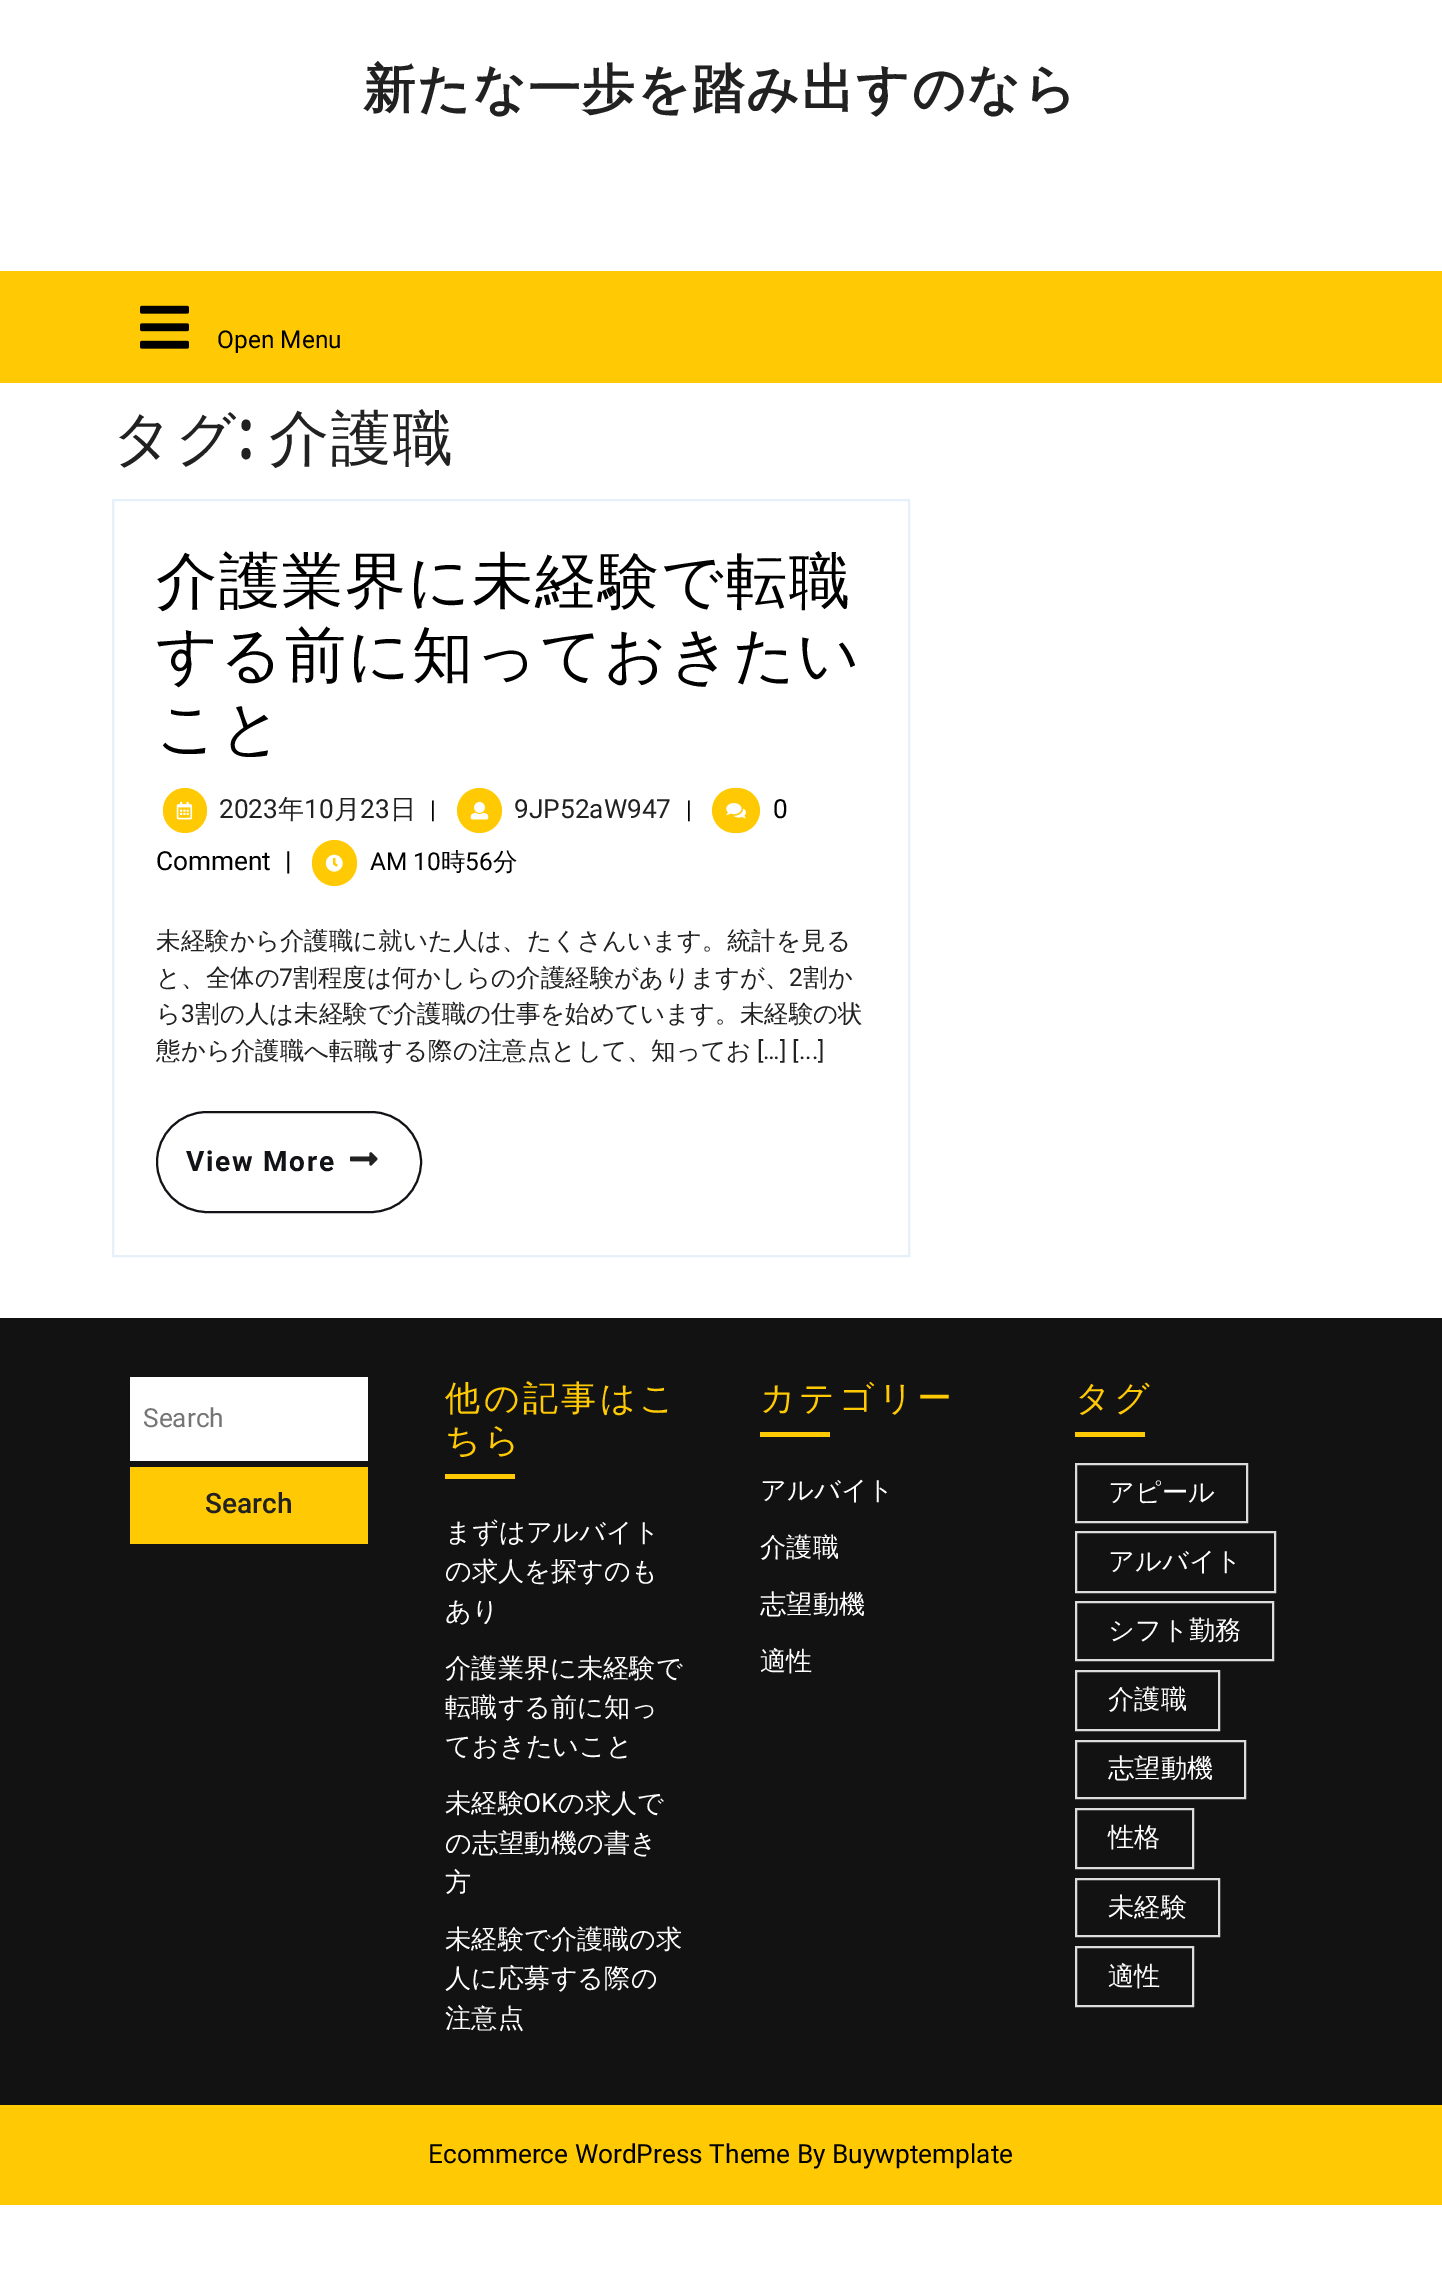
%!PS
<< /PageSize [1442 2271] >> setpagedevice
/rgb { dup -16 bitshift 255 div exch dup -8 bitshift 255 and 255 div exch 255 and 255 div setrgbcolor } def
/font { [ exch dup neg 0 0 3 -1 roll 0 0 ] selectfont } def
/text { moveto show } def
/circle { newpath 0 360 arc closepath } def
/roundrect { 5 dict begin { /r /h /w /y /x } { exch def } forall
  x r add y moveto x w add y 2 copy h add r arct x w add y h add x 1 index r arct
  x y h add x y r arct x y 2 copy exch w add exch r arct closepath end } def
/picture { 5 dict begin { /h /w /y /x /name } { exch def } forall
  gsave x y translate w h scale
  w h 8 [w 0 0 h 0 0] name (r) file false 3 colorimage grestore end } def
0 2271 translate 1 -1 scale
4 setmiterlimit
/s1 { /Roboto-Regular 24.5 font 16#000000 rgb } def
/s2 { /Roboto-Regular 26.25 font 16#212121 rgb } def
/s3 { /WenQuanYiZenHei-Medium 26.25 font 16#212121 rgb } def
/s4 { /Roboto-Regular 26.25 font 16#000000 rgb } def
/s5 { /WenQuanYiZenHei-Medium 24.5 font 16#000000 rgb } def
/s6 { /WenQuanYiZenHei-Medium 24.5 font 16#212121 rgb } def
/s7 { /Roboto-Regular 24.5 font 16#212121 rgb } def
/s8 { /Roboto-Regular 26.25 font 16#757575 rgb } def
/s9 { /Roboto-Medium 28 font 16#212121 rgb } def
/s10 { /WenQuanYiZenHei-Medium 26.25 font 16#FFFFFF rgb } def
/s11 { /Roboto-Regular 26.25 font 16#FFFFFF rgb } def
16#FFFFFF rgb
0 0 1442 2271 rectfill
/WenQuanYiZenHei-Bold 52.5 font
16#212121 rgb
363 107 moveto 1.75 0 (新たな一歩を踏み出すのなら) ashow
16#FFCA04 rgb
0 271 1442 112 rectfill
(pic1.raw) 140 305 49 44 picture
s1
(Open Menu) 217 348 text
/WenQuanYiZenHei-Medium 60 font
16#212121 rgb
112 459 moveto 1.75 0 (タグ) ashow
/FjallaOne-Regular 60 font
239 459 moveto 1.75 0 (:) ashow
/WenQuanYiZenHei-Medium 60 font
269 459 moveto 1.75 0 (介護職) ashow
16#E6F0FA rgb
2 setlinewidth
113 500 796 756 rectstroke
/WenQuanYiZenHei-Medium 61.25 font
16#000000 rgb
156 602 moveto 1.75 0 (介護業界に未経験で転職) ashow
156 676 moveto 1.75 0 (する前に知っておきたい) ashow
156 749 moveto 1.75 0 (こと) ashow
16#FFCA04 rgb
163 788 44 45 22 roundrect fill
(pic2.raw) 176 801 17 19 picture
s2
(2023) 219 818 text
s3
(年) 278 818 text
s2
(10) 304 818 text
s3
(月) 334 818 text
s2
(23) 360 818 text
s3
(日) 390 818 text
s1
(|) 430 818 text
16#FFCA04 rgb
712 788 48 45 22.5 roundrect fill
(pic3.raw) 726 803 20 16 picture
s4
(0) 773 818 text
(Comment) 156 870 text
(|) 285 870 text
16#FFCA04 rgb
479.5 810.5 22.5 circle fill
(pic4.raw) 470 801 19 19 picture
s2
(9JP52aW947) 514 818 text
s1
(|) 686 818 text
16#FFCA04 rgb
312 840 45 46 22.5 roundrect fill
(pic5.raw) 325 854 18 18 picture
s1
(AM 10) 370 870 text
s5
(時) 441 870 text
s1
(56) 465 870 text
s5
(分) 493 870 text
s6
(未経験から介護職に就いた人は、たくさんいます。統計を見る) 156 949 text
(と、全体の) 156 986 text
s7
(7) 279 986 text
s6
(割程度は何かしらの介護経験がありますが、) 293 986 text
s7
(2) 789 986 text
s6
(割か) 803 986 text
(ら) 156 1022 text
s7
(3) 181 1022 text
s6
(割の人は未経験で介護職の仕事を始めています。未経験の状) 195 1022 text
(態から介護職へ転職する際の注意点として、知ってお) 156 1059 text
s7
([…] [...]) 757 1059 text
16#121317 rgb
157 1112 264 100 50 roundrect stroke
/Roboto-Bold 28 font
186 1171 moveto 1.75 0 (View More) ashow
(pic6.raw) 350 1152 28 14 picture
16#121212 rgb
0 1318 1442 787 rectfill
16#FFFFFF rgb
130 1377 238 84 rectfill
s8
(Search) 143 1427 text
16#FFCA04 rgb
130 1467 238 77 rectfill
s9
(Search) 205 1513 text
/WenQuanYiZenHei-Medium 35 font
16#FFCA04 rgb
445 1410 moveto 3.5 0 (他の記事はこ) ashow
445 1452 moveto 3.5 0 (ちら) ashow
445 1474 70 5 rectfill
s10
(まずはアルバイト) 445 1541 text
(の求人を探すのも) 445 1580 text
(あり) 445 1620 text
(介護業界に未経験で) 445 1677 text
(転職する前に知っ) 445 1716 text
(ておきたいこと) 445 1755 text
(未経験) 445 1812 text
s11
(OK) 523 1812 text
s10
(の求人で) 558 1812 text
(の志望動機の書き) 445 1852 text
(方) 445 1891 text
(未経験で介護職の求) 445 1948 text
(人に応募する際の) 445 1987 text
(注意点) 445 2027 text
/WenQuanYiZenHei-Medium 35 font
16#FFCA04 rgb
760 1410 moveto 3.5 0 (カテゴリー) ashow
760 1432 70 5 rectfill
s10
(アルバイト) 760 1499 text
(介護職) 760 1556 text
(志望動機) 760 1613 text
(適性) 760 1670 text
/WenQuanYiZenHei-Medium 35 font
16#FFCA04 rgb
1075 1410 moveto 3.5 0 (タグ) ashow
1075 1432 70 5 rectfill
16#DDDDDD rgb
1076 1464 171 58 rectstroke
s10
(アピール) 1108 1501 text
16#DDDDDD rgb
1076 1532 199 60 rectstroke
s10
(アルバイト) 1108 1570 text
16#DDDDDD rgb
1076 1602 197 58 rectstroke
s10
(シフト勤務) 1108 1639 text
16#DDDDDD rgb
1076 1671 143 59 rectstroke
s10
(介護職) 1108 1708 text
16#DDDDDD rgb
1076 1741 169 57 rectstroke
s10
(志望動機) 1108 1777 text
16#DDDDDD rgb
1076 1809 117 59 rectstroke
s10
(性格) 1108 1846 text
16#DDDDDD rgb
1076 1879 143 57 rectstroke
s10
(未経験) 1108 1916 text
16#DDDDDD rgb
1076 1947 117 59 rectstroke
s10
(適性) 1108 1985 text
16#FFCA04 rgb
0 2105 1442 100 rectfill
s4
(Ecommerce WordPress Theme By Buywptemplate) 428 2163 text
showpage
